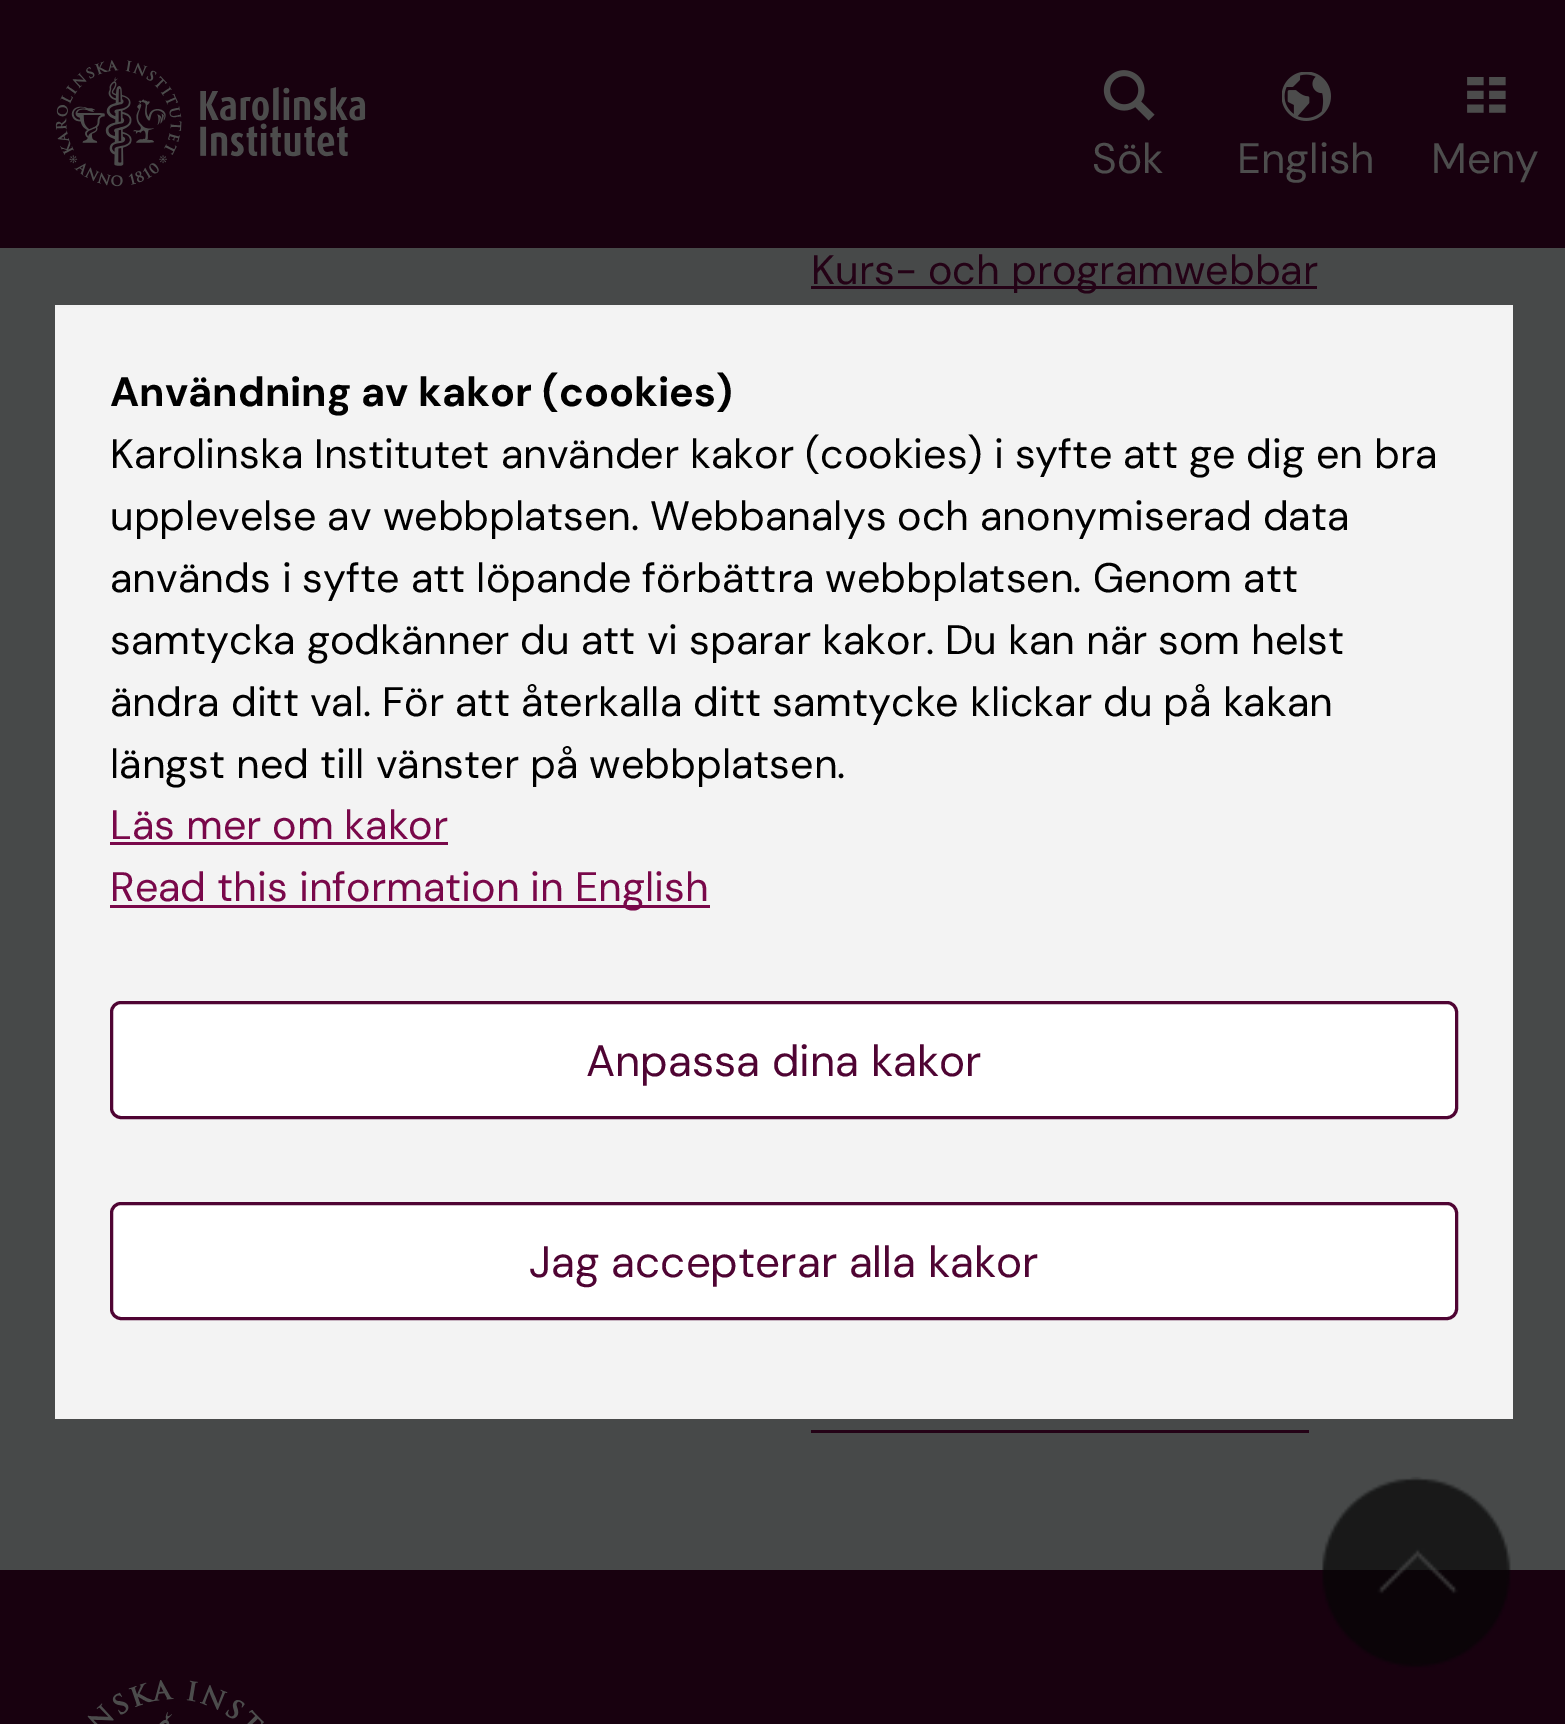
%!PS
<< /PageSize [1565 1724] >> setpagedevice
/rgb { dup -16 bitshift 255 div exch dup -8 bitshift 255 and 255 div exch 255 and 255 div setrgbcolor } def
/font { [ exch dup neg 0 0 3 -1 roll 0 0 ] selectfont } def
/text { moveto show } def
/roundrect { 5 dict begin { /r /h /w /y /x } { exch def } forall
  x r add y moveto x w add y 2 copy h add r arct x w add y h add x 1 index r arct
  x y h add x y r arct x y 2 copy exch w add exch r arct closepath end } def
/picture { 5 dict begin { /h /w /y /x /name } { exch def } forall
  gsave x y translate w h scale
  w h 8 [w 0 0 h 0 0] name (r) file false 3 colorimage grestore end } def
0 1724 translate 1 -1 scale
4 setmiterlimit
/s1 { /DMSans-Regular 42.5 font 16#4D4D4D rgb } def
/s2 { /DMSans-Regular 41.25 font 16#240216 rgb } def
/s3 { /DMSans-Bold 41.25 font 16#000000 rgb } def
/s4 { /DMSans-Regular 41.25 font 16#000000 rgb } def
/s5 { /DMSans-Regular 41.25 font 16#79084A rgb } def
/s6 { /DMSans-Regular 44 font 16#4F0433 rgb } def
16#474949 rgb
0 0 1565 1724 rectfill
16#18010F rgb
0 0 1565 248 rectfill
(pic1.raw) 55 60 311 127 picture
(pic2.raw) 1103 70 52 51 picture
s1
(Sök) 1092 173 text
(pic3.raw) 1282 72 49 49 picture
(English) 1237 173 text
(pic4.raw) 1467 77 39 36 picture
(Meny) 1431 173 text
16#240216 rgb
811 286 506 3 rectfill
s2
(Kurs- och programwebbar) 811 284 text
811 1430 498 3 rectfill
16#18010F rgb
0 1570 1565 154 rectfill
(pic5.raw) 87 1680 177 44 picture
16#F3F3F3 rgb
55 308 1458 1111 rectfill
16#F1F1F1 rgb
55 305 1458 3 rectfill
s3
(Användning av kakor \(cookies\)) 110 406 text
s4
(Karolinska Institutet använder kakor \(cookies\) i syfte att ge dig en bra) 110 468 text
(upplevelse av webbplatsen. Webbanalys och anonymiserad data) 110 530 text
(används i syfte att löpande förbättra webbplatsen. Genom att) 110 592 text
(samtycka godkänner du att vi sparar kakor. Du kan när som helst) 110 654 text
(ändra ditt val. För att återkalla ditt samtycke klickar du på kakan) 110 716 text
(längst ned till vänster på webbplatsen.) 110 778 text
s5
(Läs mer om kakor) 110 839 text
110 842 338 3 rectfill
110 905 600 3 rectfill
(Read this information in English) 110 901 text
16#FFFFFF rgb
111.5 1002.5 1345 115 9.5 roundrect gsave fill grestore
16#4F0433 rgb
3 setlinewidth
stroke
s6
(Anpassa dina kakor) 586 1076 text
16#FFFFFF rgb
111.5 1203.5 1345 115 9.5 roundrect gsave fill grestore
16#4F0433 rgb
stroke
(Jag accepterar alla kakor) 529 1277 text
(pic6.raw) 1322 1476 189 192 picture
showpage
